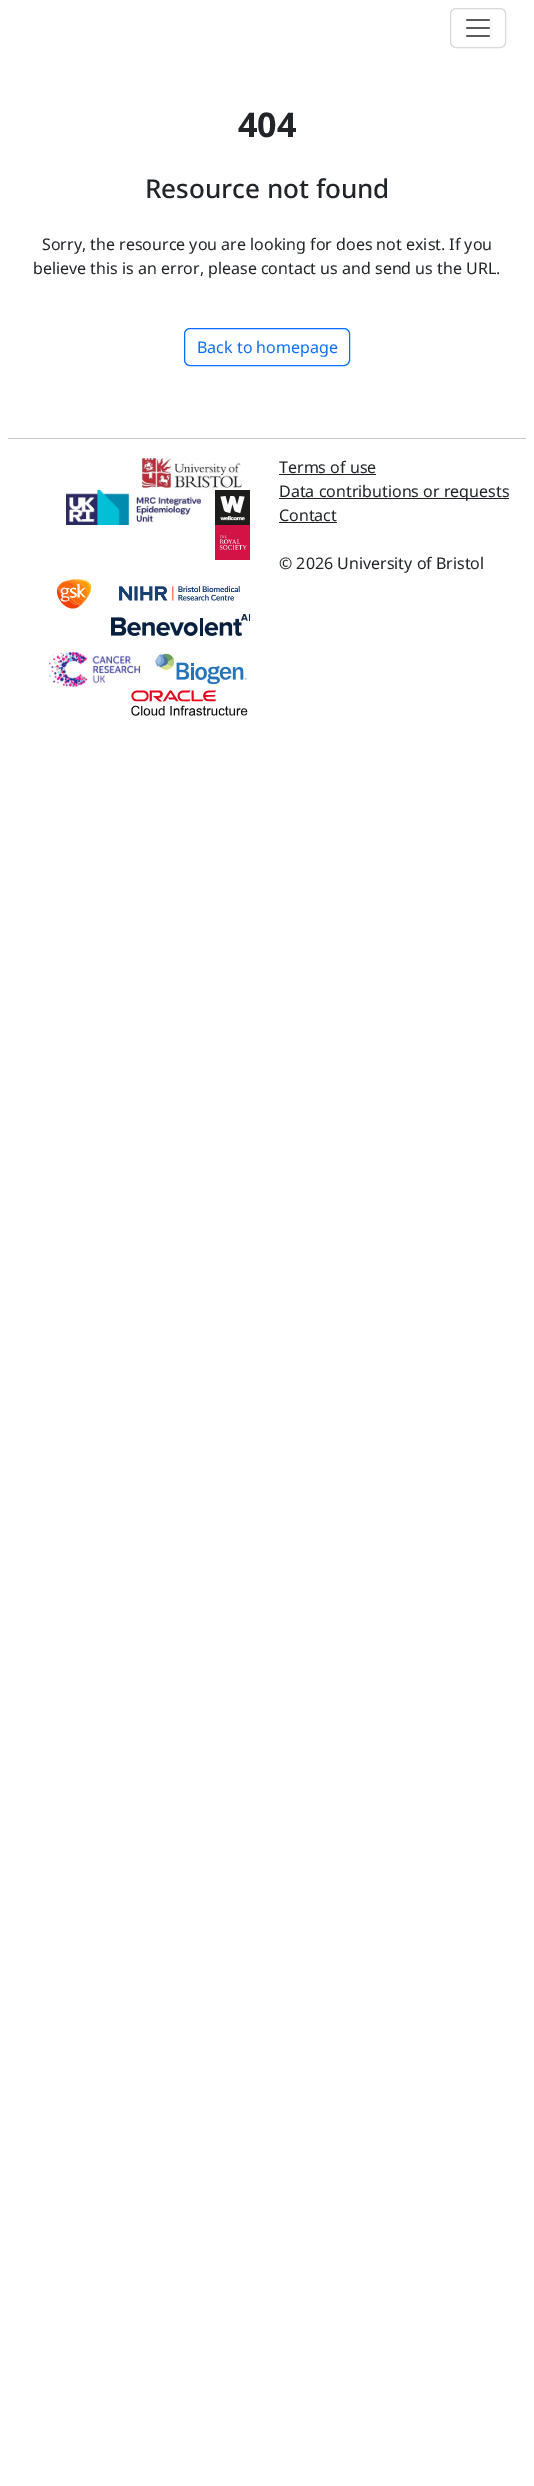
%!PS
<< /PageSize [534 2486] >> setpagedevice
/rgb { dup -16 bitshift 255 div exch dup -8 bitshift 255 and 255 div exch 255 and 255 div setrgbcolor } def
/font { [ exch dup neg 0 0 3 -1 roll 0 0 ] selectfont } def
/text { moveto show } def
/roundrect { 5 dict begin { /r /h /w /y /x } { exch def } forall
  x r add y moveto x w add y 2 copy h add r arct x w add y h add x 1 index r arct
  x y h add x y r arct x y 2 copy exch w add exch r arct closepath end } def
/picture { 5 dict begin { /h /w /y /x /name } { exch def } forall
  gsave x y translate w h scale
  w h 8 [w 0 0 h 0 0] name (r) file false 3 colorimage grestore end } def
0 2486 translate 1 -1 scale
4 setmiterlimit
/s1 { /NotoSans-Bold 34 font 16#212529 rgb } def
/s2 { /NotoSans-Medium 26 font 16#212529 rgb } def
/s3 { /NotoSans-Regular 16 font 16#212529 rgb } def
/s4 { /NotoSans-Regular 16 font 16#0D6EFD rgb } def
16#FFFFFF rgb
0 0 534 2486 rectfill
16#D9D9D9 rgb
450.5 8.5 55 39 5.5 roundrect stroke
(pic1.raw) 466 19 24 18 picture
s1
(404) 238 137 text
s2
(Resource not found) 145 198 text
s3
(Sorry, the resource you are looking for does not exist. If you) 42 250 text
(believe this is an error, please contact us and send us the URL.) 33 274 text
16#0D6EFD rgb
184.5 328.5 165 37 5.5 roundrect stroke
(Back to homepage) 197 353 text
16#C8C9CA rgb
8 438 518 1 rectfill
(pic2.raw) 141 457 101 32 picture
(pic3.raw) 66 490 135 35 picture
(pic4.raw) 215 490 35 35 picture
(pic5.raw) 215 525 35 35 picture
(pic6.raw) 56 579 36 30 picture
(pic7.raw) 119 586 121 15 picture
(pic8.raw) 111 614 139 22 picture
(pic9.raw) 49 652 91 35 picture
(pic10.raw) 155 653 92 32 picture
(pic11.raw) 131 690 117 26 picture
s3
(Terms of use) 279 473 text
279 474 97 1 rectfill
279 498 230 1 rectfill
(Data contributions or requests) 279 497 text
(Contact) 279 521 text
279 522 58 1 rectfill
(© 2026 University of Bristol) 279 569 text
showpage
